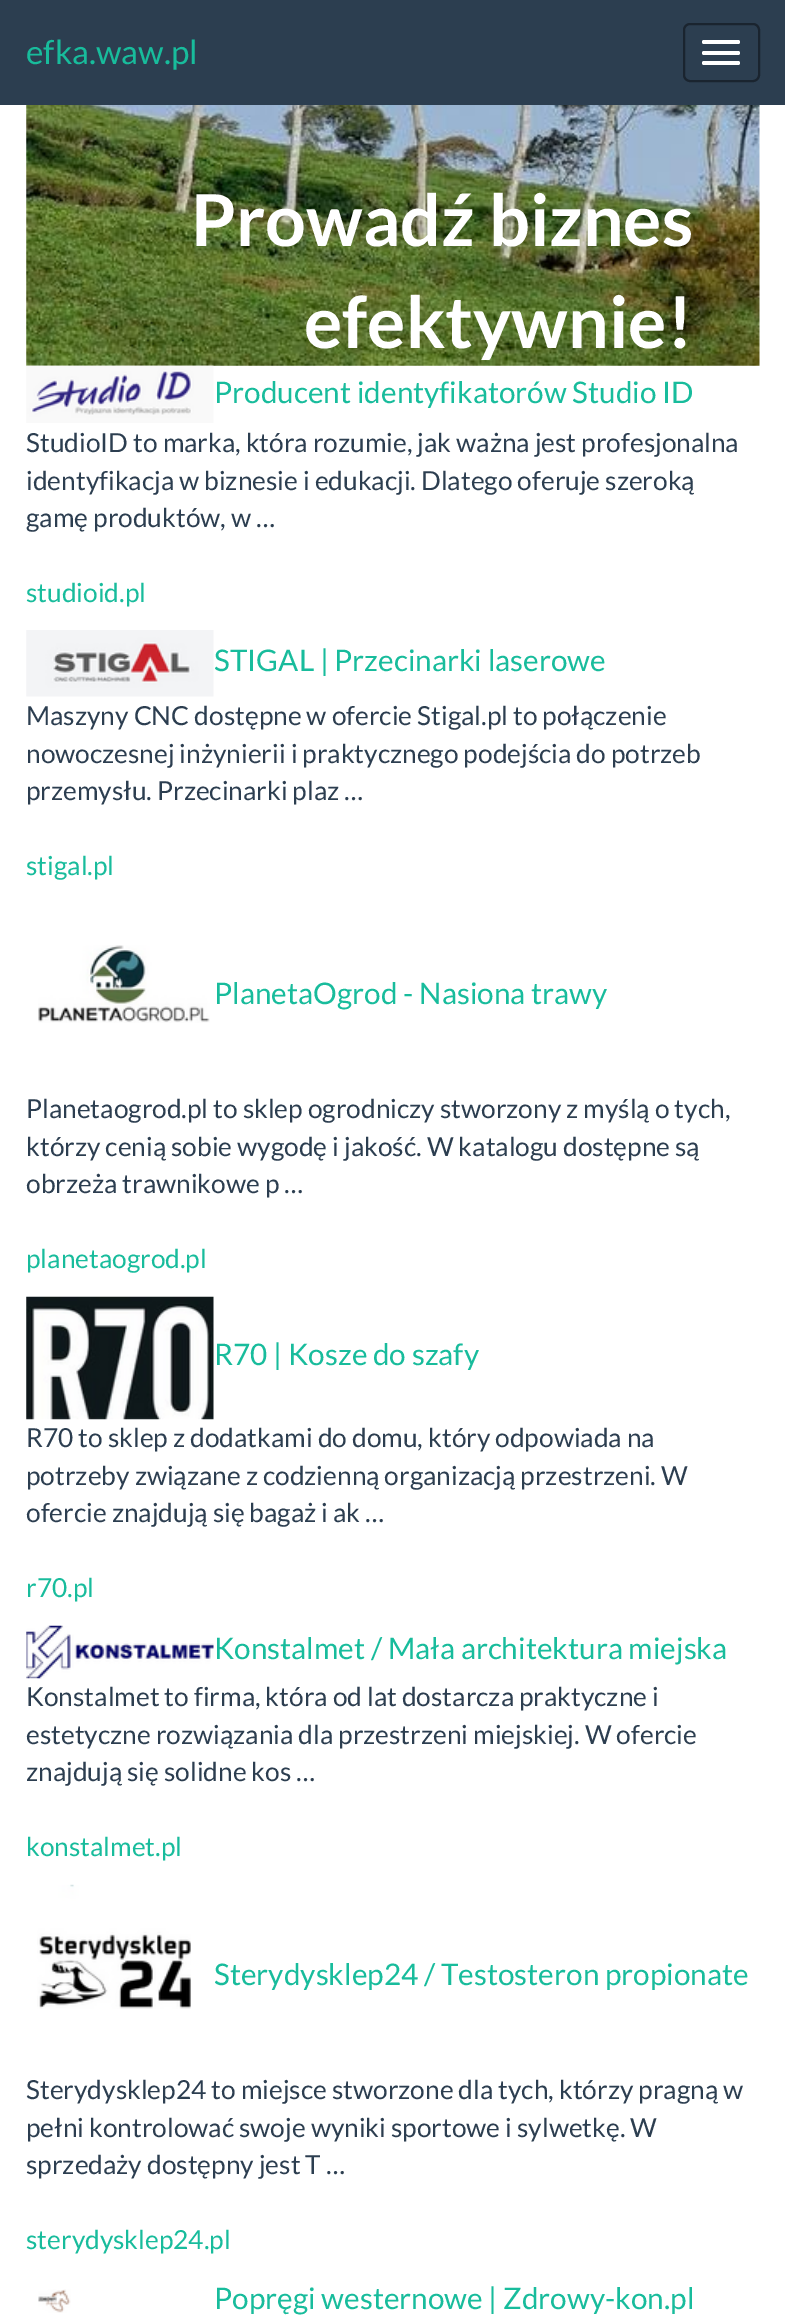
%!PS
<< /PageSize [785 2316] >> setpagedevice
/rgb { dup -16 bitshift 255 div exch dup -8 bitshift 255 and 255 div exch 255 and 255 div setrgbcolor } def
/font { [ exch dup neg 0 0 3 -1 roll 0 0 ] selectfont } def
/text { moveto show } def
/roundrect { 5 dict begin { /r /h /w /y /x } { exch def } forall
  x r add y moveto x w add y 2 copy h add r arct x w add y h add x 1 index r arct
  x y h add x y r arct x y 2 copy exch w add exch r arct closepath end } def
/picture { 5 dict begin { /h /w /y /x /name } { exch def } forall
  gsave x y translate w h scale
  w h 8 [w 0 0 h 0 0] name (r) file false 3 colorimage grestore end } def
0 2316 translate 1 -1 scale
4 setmiterlimit
/s1 { /Lato-Regular 33.25 font 16#18BC9C rgb } def
/s2 { /Lato-Bold 71.75 font 16#FFFFFF rgb } def
/s3 { /Lato-Regular 29.75 font 16#18BC9C rgb } def
/s4 { /Lato-Regular 26.25 font 16#2C3E50 rgb } def
/s5 { /Lato-Regular 26.25 font 16#18BC9C rgb } def
16#FFFFFF rgb
0 0 785 2316 rectfill
16#2C3E50 rgb
0 0 785 105 rectfill
s1
(efka.waw.pl) 26 64 text
16#1A242F rgb
2 setlinewidth
684 24 75 57 6 roundrect stroke
16#FFFFFF rgb
702 40 38 4 2 roundrect fill
702 51 38 4 2 roundrect fill
702 61 38 4 2 roundrect fill
(pic1.raw) 26 105 734 261 picture
s2
(Prowadź biznes) 191 246 text
(efektywnie!) 304 348 text
(pic2.raw) 26 365 188 58 picture
s3
(Producent identyfikatorów Studio ID) 214 403 text
s4
(StudioID to marka, która rozumie, jak ważna jest profesjonalna) 26 452 text
(identyfikacja w biznesie i edukacji. Dlatego oferuje szeroką) 26 490 text
(gamę produktów, w …) 26 527 text
s5
(studioid.pl) 26 602 text
(pic3.raw) 26 630 188 67 picture
s3
(STIGAL | Przecinarki laserowe) 214 671 text
s4
(Maszyny CNC dostępne w ofercie Stigal.pl to połączenie) 26 725 text
(nowoczesnej inżynierii i praktycznego podejścia do potrzeb) 26 763 text
(przemysłu. Przecinarki plaz …) 26 800 text
s5
(stigal.pl) 26 875 text
(pic4.raw) 38 945 172 78 picture
s3
(PlanetaOgrod - Nasiona trawy) 214 1004 text
s4
(Planetaogrod.pl to sklep ogrodniczy stworzony z myślą o tych,) 26 1118 text
(którzy cenią sobie wygodę i jakość. W katalogu dostępne są) 26 1156 text
(obrzeża trawnikowe p …) 26 1193 text
s5
(planetaogrod.pl) 26 1268 text
(pic5.raw) 26 1296 188 124 picture
s3
(R70 | Kosze do szafy) 214 1365 text
s4
(R70 to sklep z dodatkami do domu, który odpowiada na) 26 1447 text
(potrzeby związane z codzienną organizacją przestrzeni. W) 26 1485 text
(ofercie znajdują się bagaż i ak …) 26 1522 text
s5
(r70.pl) 26 1597 text
(pic6.raw) 26 1625 188 54 picture
s3
(Konstalmet / Mała architektura miejska) 214 1659 text
s4
(Konstalmet to firma, która od lat dostarcza praktyczne i) 26 1706 text
(estetyczne rozwiązania dla przestrzeni miejskiej. W ofercie) 26 1744 text
(znajdują się solidne kos …) 26 1781 text
s5
(konstalmet.pl) 26 1856 text
(pic7.raw) 37 1884 154 125 picture
s3
(Sterydysklep24 / Testosteron propionate) 214 1985 text
s4
(Sterydysklep24 to miejsce stworzone dla tych, którzy pragną w) 26 2099 text
(pełni kontrolować swoje wyniki sportowe i sylwetkę. W) 26 2137 text
(sprzedaży dostępny jest T …) 26 2174 text
s5
(sterydysklep24.pl) 26 2249 text
(pic8.raw) 38 2289 33 24 picture
s3
(Popręgi westernowe | Zdrowy-kon.pl) 214 2309 text
showpage
